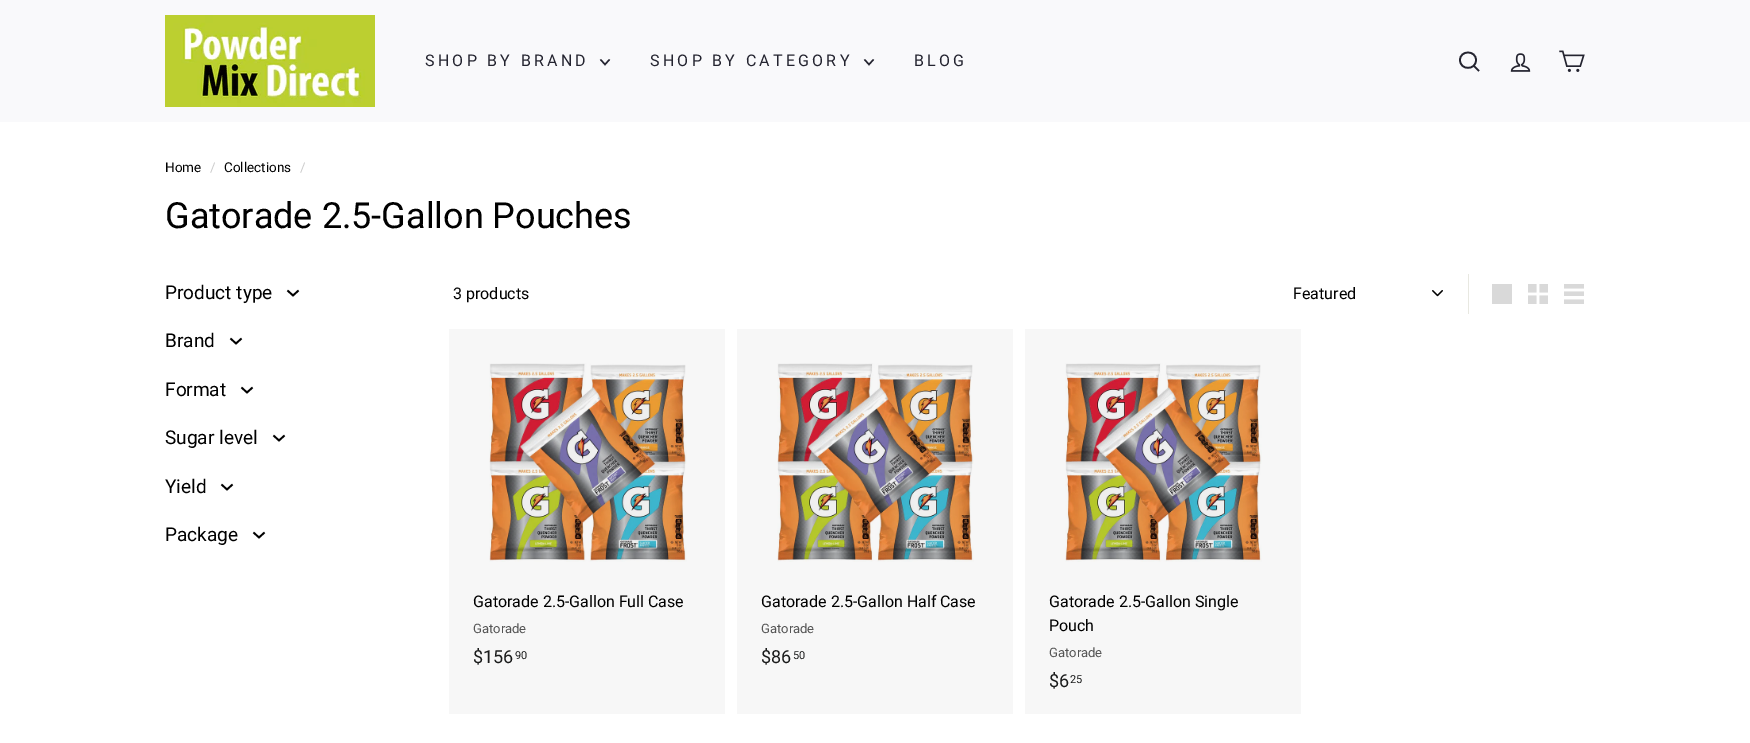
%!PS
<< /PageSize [1750 743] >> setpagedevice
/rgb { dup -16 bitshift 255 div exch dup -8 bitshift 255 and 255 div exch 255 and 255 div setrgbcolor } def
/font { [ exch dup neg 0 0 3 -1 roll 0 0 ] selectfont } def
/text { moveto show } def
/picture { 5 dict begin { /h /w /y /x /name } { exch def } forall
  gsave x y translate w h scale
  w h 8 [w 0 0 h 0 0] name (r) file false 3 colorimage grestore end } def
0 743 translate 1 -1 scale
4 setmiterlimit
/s1 { /Roboto-Regular 13.5 font 16#000000 rgb } def
/s2 { /Roboto-Regular 13.5 font 16#CCCCCC rgb } def
/s3 { /Roboto-Regular 36 font 16#000000 rgb } def
/s4 { /Roboto-Regular 19 font 16#000000 rgb } def
/s5 { /Roboto-Regular 16 font 16#000000 rgb } def
/s6 { /Roboto-Regular 13 font 16#565656 rgb } def
/s7 { /Roboto-Regular 18 font 16#1B1C1C rgb } def
/s8 { /Roboto-Regular 11 font 16#1B1C1C rgb } def
16#FFFFFF rgb
0 0 1750 743 rectfill
16#F7F7F7 rgb
1025 329 276 385 rectfill
737 329 276 385 rectfill
449 329 276 385 rectfill
16#F9F9FB rgb
0 0 1750 122 rectfill
(pic1.raw) 165 15 210 92 picture
/Roboto-Regular 16 font
16#242430 rgb
425 66 moveto 3.25 0 (SHOP BY BRAND) ashow
1.4 setlinewidth
600.5 59.5 moveto 605 64.5 lineto 609.5 59.5 lineto stroke
650 66 moveto 3.25 0 (SHOP BY CATEGORY) ashow
864.5 59.5 moveto 869 64.5 lineto 873.5 59.5 lineto stroke
914 66 moveto 3.25 0 (BLOG) ashow
1.7 setlinewidth
1476 60 moveto 1476 70.5 1460 70.5 1460 60 curveto 1460 50 1476 50 1476 60 curveto 1479 71 moveto 1473.5 65.5 lineto stroke
(pic2.raw) 1510 53 21 19 picture
(pic3.raw) 1559 50 26 22 picture
s1
(Home) 165 172 text
s2
(/) 210 172 text
s1
(Collections) 224 172 text
s2
(/) 300 172 text
s3
(Gatorade 2.5-Gallon Pouches) 165 228 text
s4
(Product type) 165 299 text
287.5 290.5 moveto 293 295.5 lineto 298.5 290.5 lineto stroke
(Brand) 165 347 text
230.5 338.5 moveto 236 343.5 lineto 241.5 338.5 lineto stroke
(Format) 165 396 text
241.5 387.5 moveto 247 392.5 lineto 252.5 387.5 lineto stroke
(Sugar level) 165 444 text
273.5 435.5 moveto 279 440.5 lineto 284.5 435.5 lineto stroke
(Yield) 165 493 text
221.5 484.5 moveto 227 489.5 lineto 232.5 484.5 lineto stroke
(Package) 165 541 text
253.5 532.5 moveto 259 537.5 lineto 264.5 532.5 lineto stroke
s5
(3 products) 453 299 text
16#E8E8E1 rgb
1468 274 1 40 rectfill
(pic4.raw) 1432 290 11 7 picture
s5
(Featured) 1293 299 text
16#D9D9D9 rgb
1492 284 20 20 rectfill
(pic5.raw) 1528 284 20 20 picture
(pic6.raw) 1564 284 20 20 picture
(pic7.raw) 489 363 198 199 picture
s5
(Gatorade 2.5-Gallon Full Case) 473 607 text
s6
(Gatorade) 473 633 text
s7
($156) 473 663 text
s8
(90) 515 659 text
(pic8.raw) 777 363 197 199 picture
s5
(Gatorade 2.5-Gallon Half Case) 761 607 text
s6
(Gatorade) 761 633 text
s7
($86) 761 663 text
s8
(50) 793 659 text
(pic8.raw) 1065 363 197 199 picture
s5
(Gatorade 2.5-Gallon Single) 1049 607 text
(Pouch) 1049 631 text
s6
(Gatorade) 1049 657 text
s7
($6) 1049 687 text
s8
(25) 1070 683 text
showpage
